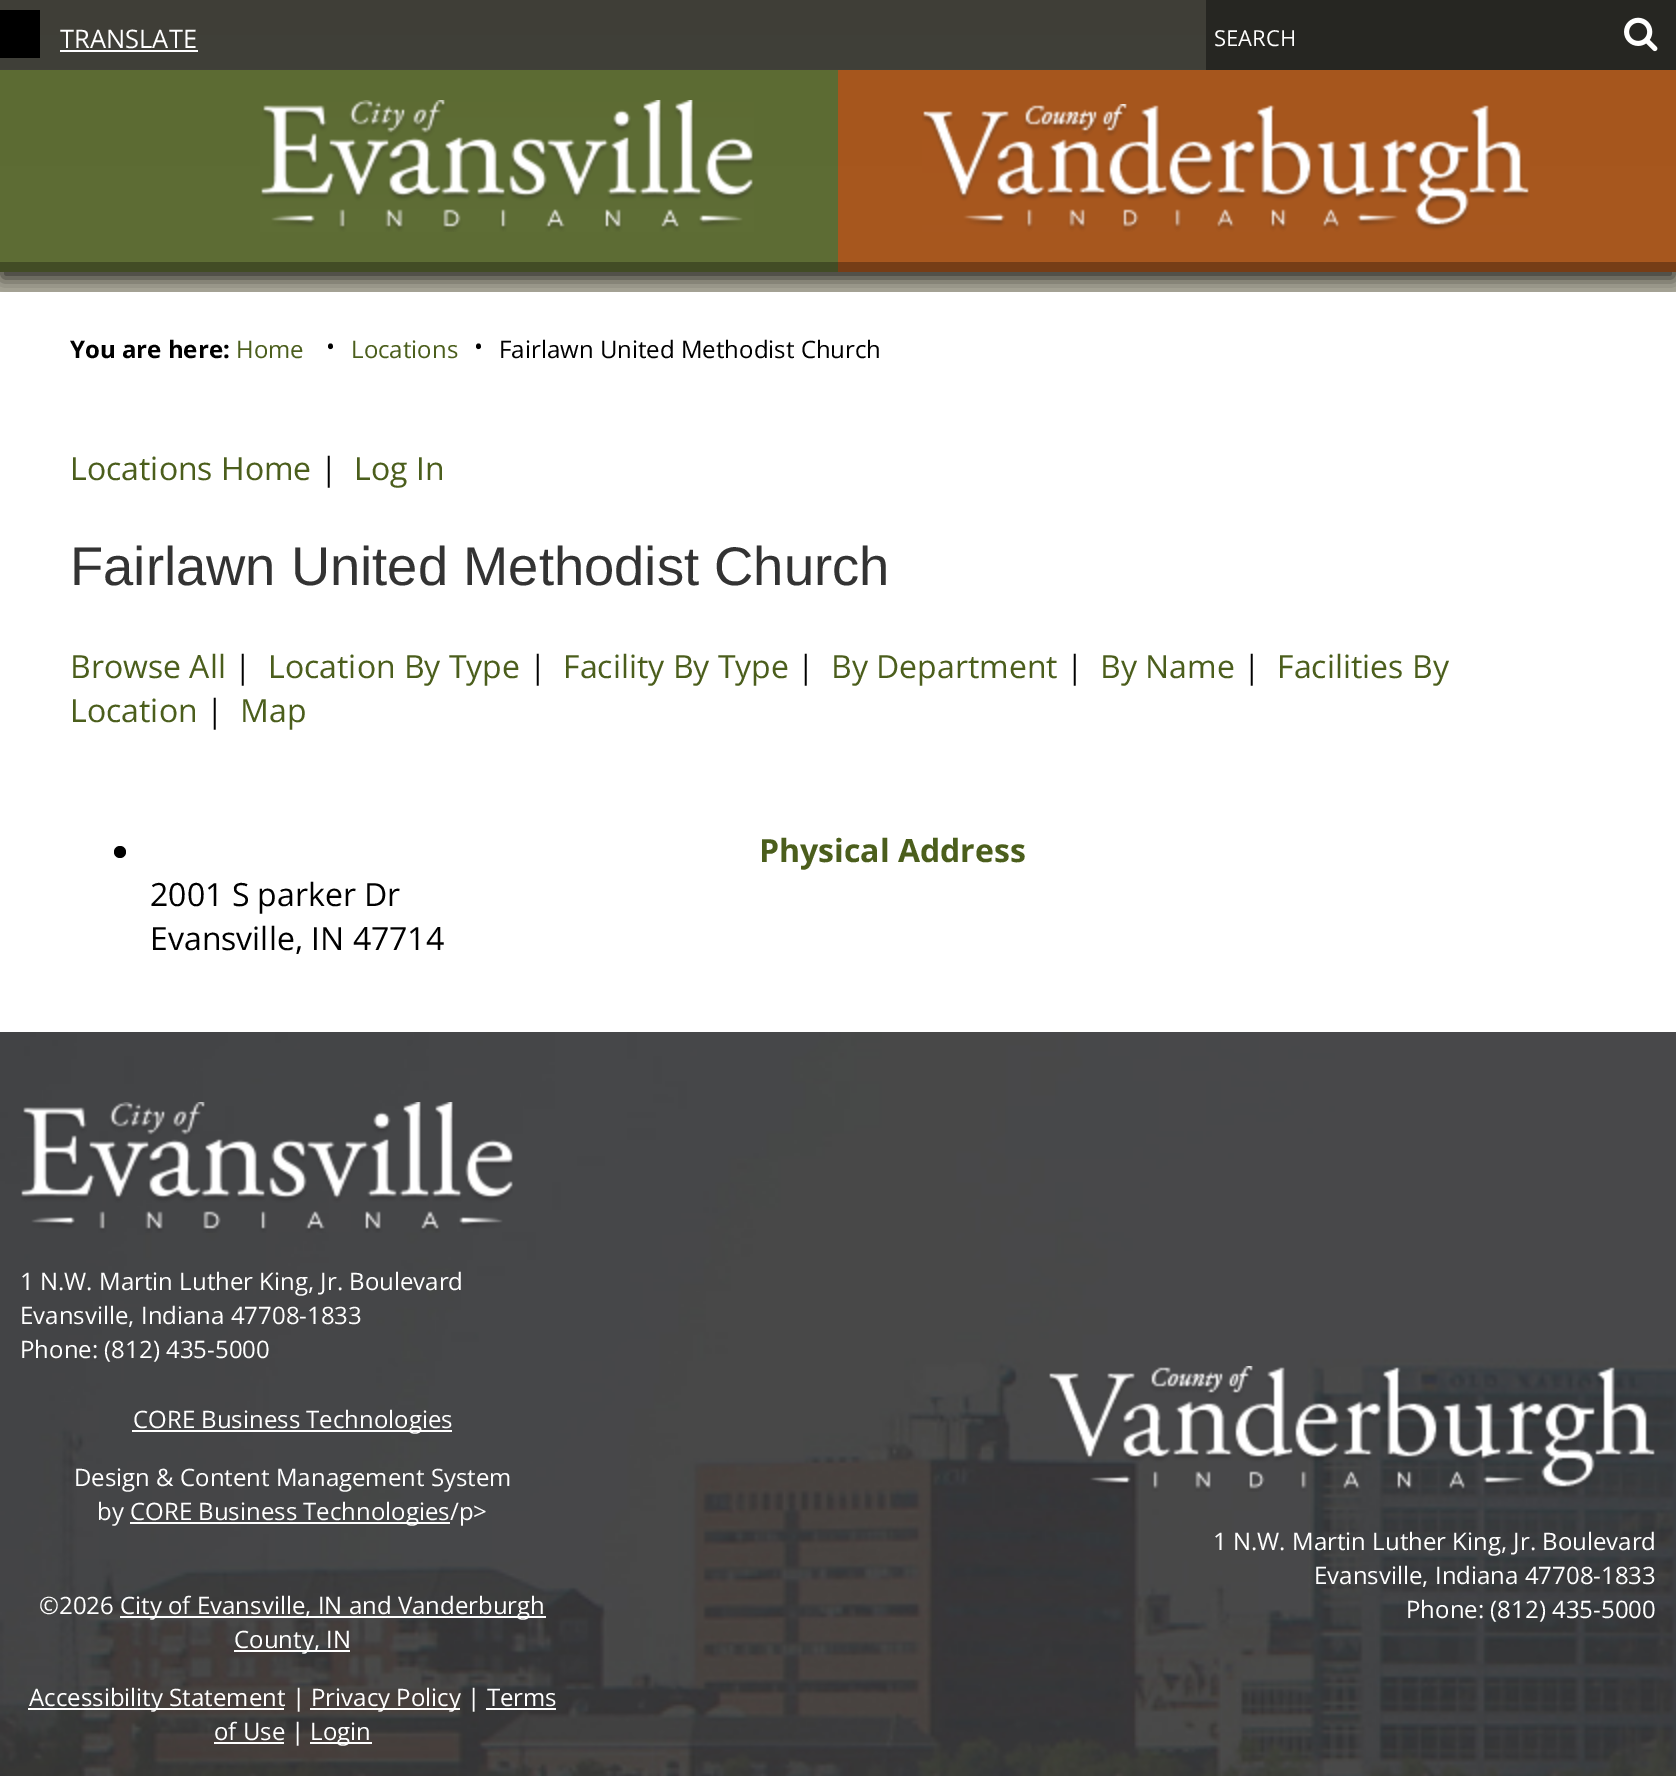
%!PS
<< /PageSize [1676 1776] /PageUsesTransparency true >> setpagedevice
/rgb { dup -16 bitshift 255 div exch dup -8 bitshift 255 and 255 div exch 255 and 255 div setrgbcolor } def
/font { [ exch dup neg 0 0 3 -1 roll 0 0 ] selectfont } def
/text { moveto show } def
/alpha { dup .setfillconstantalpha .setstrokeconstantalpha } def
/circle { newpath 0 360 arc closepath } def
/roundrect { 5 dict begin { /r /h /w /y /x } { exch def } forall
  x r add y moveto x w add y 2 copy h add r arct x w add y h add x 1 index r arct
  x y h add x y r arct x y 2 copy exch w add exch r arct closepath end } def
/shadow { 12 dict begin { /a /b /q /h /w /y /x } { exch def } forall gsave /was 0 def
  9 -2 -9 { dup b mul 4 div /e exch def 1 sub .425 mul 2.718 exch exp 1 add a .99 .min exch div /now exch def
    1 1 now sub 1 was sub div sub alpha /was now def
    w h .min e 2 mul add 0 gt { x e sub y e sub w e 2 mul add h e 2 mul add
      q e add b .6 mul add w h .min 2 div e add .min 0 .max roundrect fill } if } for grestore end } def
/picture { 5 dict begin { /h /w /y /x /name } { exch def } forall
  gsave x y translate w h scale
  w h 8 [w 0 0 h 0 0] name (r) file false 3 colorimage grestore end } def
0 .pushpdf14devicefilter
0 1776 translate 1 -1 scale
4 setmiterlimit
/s1 { /OpenSans-Regular 25.5 font 16#FFFFFF rgb } def
/s2 { /OpenSans-Regular 22 font 16#FFFFFF rgb } def
/s3 { /OpenSans-Bold 24 font 16#000000 rgb } def
/s4 { /OpenSans-Regular 24 font 16#4B5E1C rgb } def
/s5 { /OpenSans-Regular 24 font 16#000000 rgb } def
/s6 { /OpenSans-Regular 32 font 16#4B5E1C rgb } def
/s7 { /OpenSans-Regular 32 font 16#000000 rgb } def
/s8 { /LiberationSans-Regular 54.4 font 16#333333 rgb } def
/s9 { /OpenSans-Bold 32 font 16#4B5E1C rgb } def
/s10 { /OpenSans-Regular 24 font 16#FFFFFF rgb } def
16#FFFFFF rgb
0 0 1676 1776 rectfill
gsave 0 272 moveto 1676 272 lineto 1676 292 lineto 0 292 lineto closepath clip newpath
<< /ShadingType 2 /ColorSpace /DeviceRGB /Coords [838 0 838 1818] /Extend [true true] /Function << /FunctionType 2 /Domain [0 1] /C0 [0.616 0.608 0.541] /C1 [1 1 1] /N 1 >> >> shfill grestore
gsave 838 70 moveto 1676 70 lineto 1676 262 lineto 838 262 lineto closepath clip newpath
<< /ShadingType 2 /ColorSpace /DeviceRGB /Coords [838 0 838 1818] /Extend [true true] /Function << /FunctionType 2 /Domain [0 1] /C0 [0.647 0.333 0.11] /C1 [0.725 0.412 0.2] /N 1 >> >> shfill grestore
gsave 0 70 moveto 838 70 lineto 838 262 lineto 0 262 lineto closepath clip newpath
<< /ShadingType 2 /ColorSpace /DeviceRGB /Coords [838 0 838 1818] /Extend [true true] /Function << /FunctionType 2 /Domain [0 1] /C0 [0.357 0.416 0.196] /C1 [0.435 0.494 0.286] /N 1 >> >> shfill grestore
gsave 0 0 moveto 1206 0 lineto 1206 70 lineto 0 70 lineto closepath clip newpath
<< /ShadingType 2 /ColorSpace /DeviceRGB /Coords [838 0 838 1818] /Extend [true true] /Function << /FunctionType 2 /Domain [0 1] /C0 [0.247 0.243 0.216] /C1 [0.4 0.4 0.4] /N 1 >> >> shfill grestore
gsave
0 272 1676 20 rectclip
16#000000 rgb
2 10 1672 268 0 8 0.75 shadow
grestore
16#000000 rgb
0 10 40 48 rectfill
s1
(TRANSLATE) 60 48 text
60 50 138 2 rectfill
16#262622 rgb
1206 0 470 70 rectfill
s2
(SEARCH) 1214 46 text
(pic1.raw) 1624 17 34 35 picture
16#424C25 rgb
0 262 838 10 rectfill
(pic2.raw) 260 100 494 132 picture
16#763D16 rgb
838 262 838 10 rectfill
(pic3.raw) 922 104 608 128 picture
16#FFFFFF rgb
0 292 1676 4 rectfill
s3
(You are here:) 70 358 text
s4
(Home) 236 358 text
s5
(•) 326 355 text
s4
(Locations) 351 358 text
s5
(•) 474 355 text
(Fairlawn United Methodist Church) 499 358 text
s6
(Locations Home) 70 480 text
s7
(|) 320 480 text
s6
(Log In) 354 480 text
s8
(Fairlawn United Methodist Church) 70 585 text
s6
(Browse All) 70 678 text
s7
(|) 234 678 text
s6
(Location By Type) 268 678 text
s7
(|) 529 678 text
s6
(Facility By Type) 563 678 text
s7
(|) 797 678 text
s6
(By Department) 831 678 text
s7
(|) 1066 678 text
s6
(By Name) 1100 678 text
s7
(|) 1243 678 text
s6
(Facilities By) 1277 678 text
(Location) 70 722 text
s7
(|) 206 722 text
s6
(Map) 240 722 text
16#000000 rgb
120 852 6 circle fill
s9
(Physical Address) 759 862 text
s7
(2001 S parker Dr) 150 906 text
(Evansville, IN 47714) 150 950 text
(pic4.raw) 0 1032 1676 744 picture
(pic5.raw) 21 1102 492 131 picture
s10
(1 N.W. Martin Luther King, Jr. Boulevard) 20 1290 text
(Evansville, Indiana 47708-1833) 20 1324 text
(Phone: \(812\) 435-5000) 20 1358 text
132 1430 320 2 rectfill
(CORE Business Technologies) 133 1428 text
(Design & Content Management System) 74 1486 text
(by) 97 1520 text
130 1522 320 2 rectfill
(CORE Business Technologies/p>) 130 1520 text
(©2026) 39 1614 text
120 1616 426 2 rectfill
(City of Evansville, IN and Vanderburgh) 120 1614 text
234 1650 116 2 rectfill
(County, IN) 234 1648 text
28 1708 256 2 rectfill
(Accessibility Statement |) 29 1706 text
310 1708 150 2 rectfill
(Privacy Policy | Terms) 311 1706 text
214 1742 70 2 rectfill
(of Use |) 214 1740 text
486 1708 70 2 rectfill
310 1742 62 2 rectfill
(Login) 310 1740 text
(pic6.raw) 1049 1366 606 126 picture
(1 N.W. Martin Luther King, Jr. Boulevard) 1213 1550 text
(Evansville, Indiana 47708-1833) 1314 1584 text
(Phone: \(812\) 435-5000) 1406 1618 text
.poppdf14devicefilter showpage
